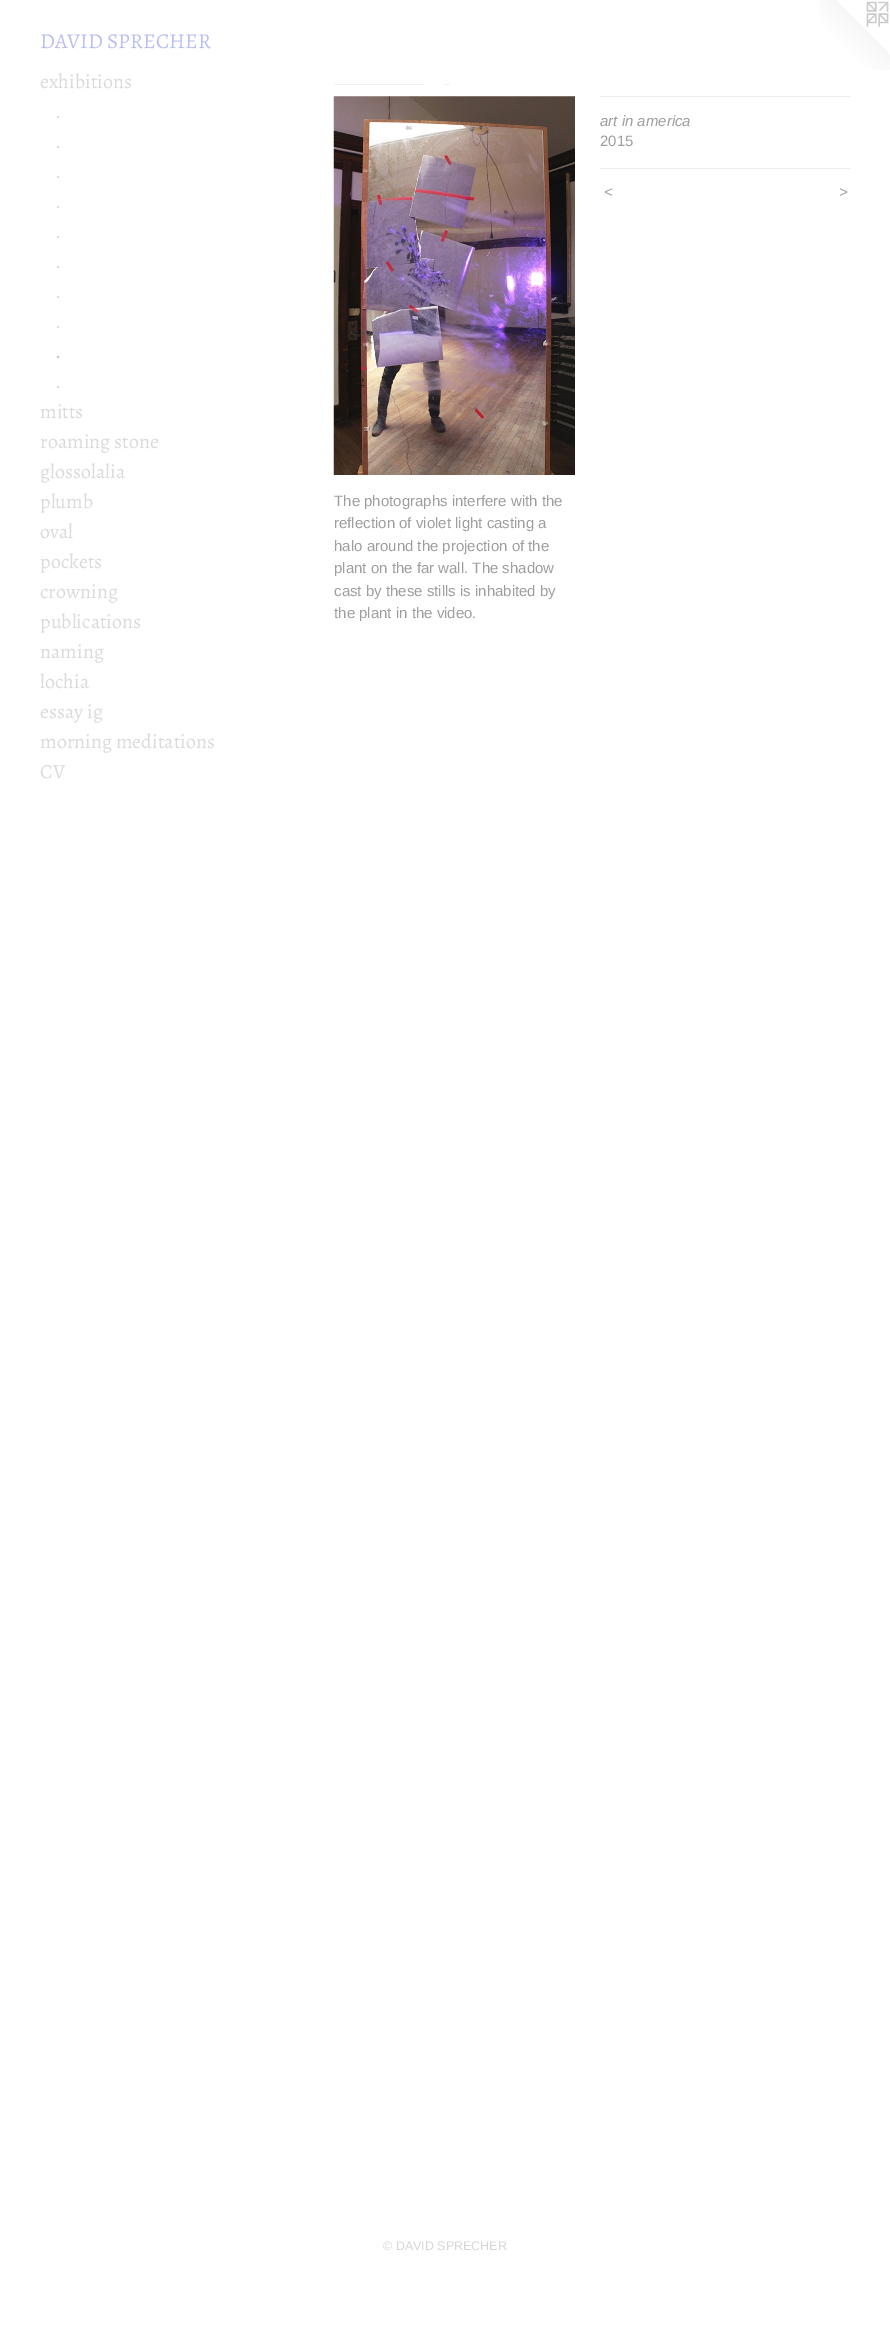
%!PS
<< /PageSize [890 2331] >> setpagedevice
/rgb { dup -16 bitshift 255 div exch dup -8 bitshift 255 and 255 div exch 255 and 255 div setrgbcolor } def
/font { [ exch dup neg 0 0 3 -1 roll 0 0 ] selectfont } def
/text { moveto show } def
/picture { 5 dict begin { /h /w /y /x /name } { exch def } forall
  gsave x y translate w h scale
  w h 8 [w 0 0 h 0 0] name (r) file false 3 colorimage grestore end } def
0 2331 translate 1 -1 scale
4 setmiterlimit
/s1 { /Alegreya-Regular 21.25 font 16#B9C0EE rgb } def
/s2 { /Alegreya-Regular 20 font 16#DBDBDC rgb } def
/s3 { /Alegreya-Regular 20 font 16#C1C1C3 rgb } def
/s4 { /LiberationSans-Italic 15 font 16#9E9E9E rgb } def
/s5 { /LiberationSans-Regular 15 font 16#9E9E9E rgb } def
/s6 { /LiberationSans-Regular 12.5 font 16#D6D6D6 rgb } def
16#FFFFFF rgb
0 0 890 2331 rectfill
s1
(DAVID SPRECHER) 40 48 text
(pic1.raw) 820 0 70 70 picture
s2
(exhibitions) 40 88 text
(.) 55 118 text
(.) 55 148 text
(.) 55 178 text
(.) 55 208 text
(.) 55 238 text
(.) 55 268 text
(.) 55 298 text
(.) 55 328 text
s3
(.) 55 358 text
s2
(.) 55 388 text
(mitts) 40 418 text
(roaming stone) 40 448 text
(glossolalia) 40 478 text
(plumb) 40 508 text
(oval) 40 538 text
(pockets) 40 568 text
(crowning) 40 598 text
(publications) 40 628 text
(naming) 40 658 text
(lochia) 40 688 text
(essay ig) 40 718 text
(morning meditations) 40 748 text
(CV) 40 778 text
16#F0F0F0 rgb
334 84 91 1 rectfill
444 84 6 1 rectfill
(pic2.raw) 333 96 242 379 picture
16#ECECEC rgb
600 96 250 1 rectfill
s4
(art in america) 600 126 text
s5
(2015) 600 146 text
16#ECECEC rgb
600 168 250 1 rectfill
/LiberationSans-Italic 15 font
16#9E9E9E rgb
604 197 moveto 1 0 (<) ashow
839 197 moveto 1 0 (>) ashow
s5
(The photographs interfere with the) 334 506 text
(reflection of violet light casting a) 334 528 text
(halo around the projection of the) 334 551 text
(plant on the far wall. The shadow) 334 573 text
(cast by these stills is inhabited by) 334 596 text
(the plant in the video.) 334 618 text
s6
(© DAVID SPRECHER) 383 2250 text
showpage
